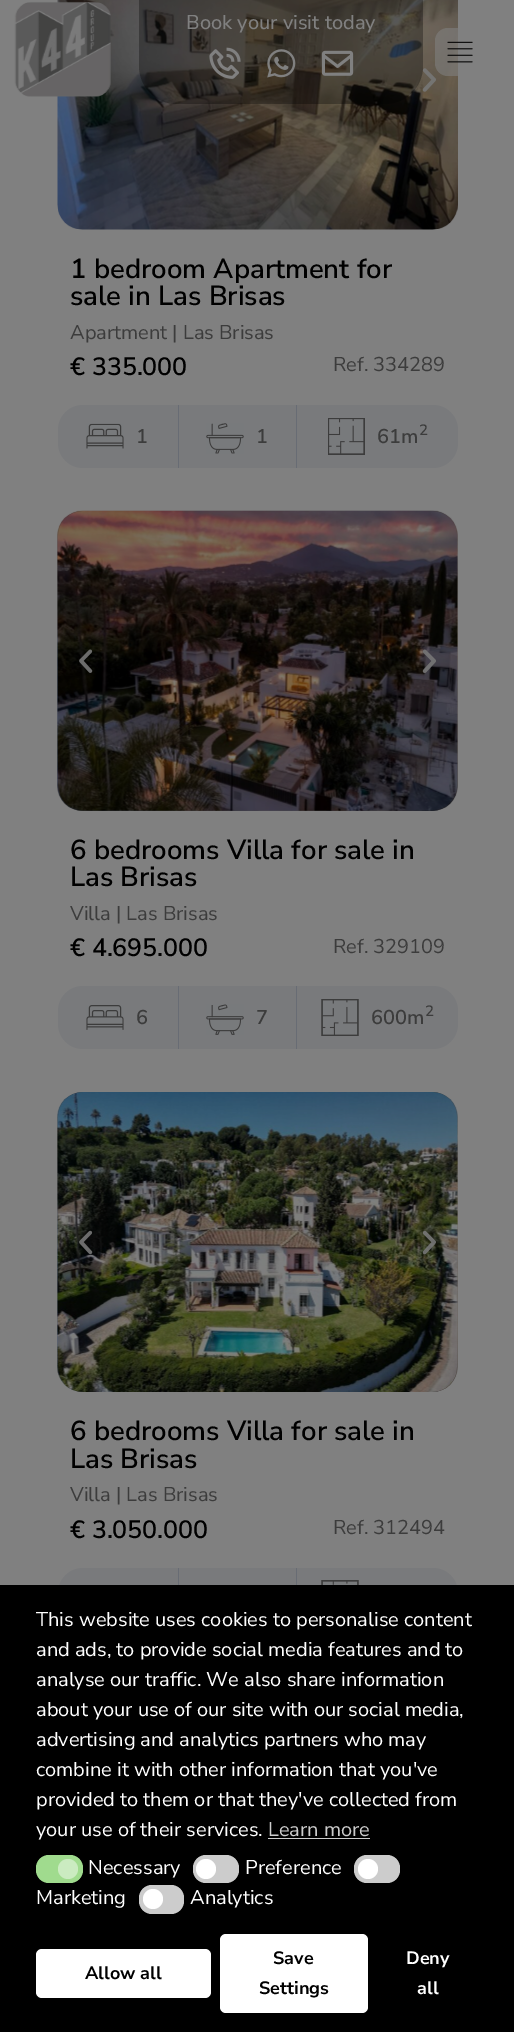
%!PS
<< /PageSize [514 2032] /PageUsesTransparency true >> setpagedevice
/rgb { dup -16 bitshift 255 div exch dup -8 bitshift 255 and 255 div exch 255 and 255 div setrgbcolor } def
/font { [ exch dup neg 0 0 3 -1 roll 0 0 ] selectfont } def
/text { moveto show } def
/alpha { dup .setfillconstantalpha .setstrokeconstantalpha } def
/circle { newpath 0 360 arc closepath } def
/roundrect { 5 dict begin { /r /h /w /y /x } { exch def } forall
  x r add y moveto x w add y 2 copy h add r arct x w add y h add x 1 index r arct
  x y h add x y r arct x y 2 copy exch w add exch r arct closepath end } def
/picture { 5 dict begin { /h /w /y /x /name } { exch def } forall
  gsave x y translate w h scale
  w h 8 [w 0 0 h 0 0] name (r) file false 3 colorimage grestore end } def
0 .pushpdf14devicefilter
0 2032 translate 1 -1 scale
4 setmiterlimit
/s1 { /NunitoSans-Medium 20 font 16#808080 rgb } def
/s2 { /NunitoSans-SemiBold 27.5 font 16#000000 rgb } def
/s3 { /NunitoSans-Regular 20 font 16#3C3C3C rgb } def
/s4 { /NunitoSans-SemiBold 25 font 16#000000 rgb } def
/s5 { /NunitoSans-SemiBold 20 font 16#3C3C3C rgb } def
/s6 { /NunitoSans-SemiBold 15 font 16#3C3C3C rgb } def
/s7 { /NunitoSans-Regular 20 font 16#FFFFFF rgb } def
/s8 { /NunitoSans-Regular 20 font 16#CCCCCC rgb } def
/s9 { /NunitoSans-Bold 18 font 16#000000 rgb } def
/s10 { /NunitoSans-Bold 18 font 16#FFFFFF rgb } def
16#808080 rgb
0 0 514 2032 rectfill
(pic6.raw) 57 0 401 230 picture
(pic7.raw) 58 0 400 229 picture
(pic1.raw) 14 1 97 96 picture
(pic8.raw) 422 68 14 24 picture
0.31 alpha
16#000000 rgb
139 0 moveto 423 0 lineto 423 66 lineto 423 87 406 104 385 104 curveto 177 104 lineto 156 104 139 87 139 66 curveto closepath fill
1 alpha
s1
(Book your visit today) 186 29 text
(pic2.raw) 209 47 32 32 picture
(pic3.raw) 267 49 29 29 picture
(pic4.raw) 321 50 33 26 picture
0.58 alpha
435 28 49 48 13 roundrect fill
1 alpha
(pic5.raw) 447 41 26 22 picture
s2
(1 bedroom Apartment for) 70 278 text
(sale in Las Brisas) 70 305 text
s3
(Apartment | Las Brisas) 70 339 text
s4
(€ 335.000) 70 375 text
s3
(Ref. 334289) 333 371 text
16#797A7C rgb
58 405 400 63 25 roundrect fill
(pic9.raw) 86 423 38 26 picture
s5
(1) 136 443 text
16#686C74 rgb
296 405 1 63 rectfill
178 405 1 63 rectfill
(pic10.raw) 206 423 38 31 picture
s5
(1) 256 443 text
(pic11.raw) 328 418 37 37 picture
(61m) 377 443 text
s6
(2) 419 435 text
(pic12.raw) 57 510 401 301 picture
(pic13.raw) 57 510 401 301 picture
(pic14.raw) 79 649 14 24 picture
(pic15.raw) 422 649 14 24 picture
s2
(6 bedrooms Villa for sale in) 70 859 text
(Las Brisas) 70 886 text
s3
(Villa | Las Brisas) 70 920 text
s4
(€ 4.695.000) 70 956 text
s3
(Ref. 329109) 333 953 text
16#797A7C rgb
58 986 400 63 25 roundrect fill
(pic16.raw) 86 1005 38 25 picture
s5
(6) 136 1024 text
16#686C74 rgb
296 986 1 63 rectfill
178 986 1 63 rectfill
(pic17.raw) 206 1004 38 31 picture
s5
(7) 256 1024 text
(pic18.raw) 321 999 38 37 picture
(600m) 371 1024 text
s6
(2) 425 1016 text
(pic19.raw) 57 1092 401 300 picture
(pic20.raw) 57 1092 401 300 picture
(pic21.raw) 79 1230 14 25 picture
(pic22.raw) 422 1230 14 25 picture
s2
(6 bedrooms Villa for sale in) 70 1440 text
(Las Brisas) 70 1468 text
s3
(Villa | Las Brisas) 70 1501 text
s4
(€ 3.050.000) 70 1538 text
s3
(Ref. 312494) 333 1534 text
16#797A7C rgb
58 1568 400 62 25 roundrect fill
16#686C74 rgb
296 1568 1 17 rectfill
178 1568 1 17 rectfill
(pic23.raw) 321 1580 38 5 picture
16#000000 rgb
0 1585 514 447 rectfill
s7
(This website uses cookies to personalise content) 36 1626 text
(and ads, to provide social media features and to) 36 1656 text
(analyse our traffic. We also share information) 36 1686 text
(about your use of our site with our social media,) 36 1716 text
(advertising and analytics partners who may) 36 1746 text
(combine it with other information that you've) 36 1776 text
(provided to them or that they've collected from) 36 1806 text
(your use of their services.) 36 1836 text
s8
(Learn more) 268 1836 text
268 1838 102 1 rectfill
16#A0DB8E rgb
36 1855 47 28 13 roundrect fill
16#CBEBC1 rgb
68 1869 10 circle fill
s7
(Necessary) 88 1874 text
16#CCCCCC rgb
193 1855 46 28 13 roundrect fill
16#FFFFFF rgb
206 1869 10 circle fill
(Preference) 245 1874 text
16#CCCCCC rgb
354 1855 46 28 13 roundrect fill
16#FFFFFF rgb
368 1869 10 circle fill
(Marketing) 36 1904 text
16#CCCCCC rgb
139 1885 45 29 13 roundrect fill
16#FFFFFF rgb
153 1899 10 circle fill
(Analytics) 190 1904 text
36 1949 175 49 6 roundrect fill
s9
(Allow all) 85 1979 text
16#FFFFFF rgb
220 1934 148 79 6 roundrect fill
s9
(Save) 273 1964 text
(Settings) 259 1994 text
s10
(Deny) 406 1964 text
(all) 417 1994 text
.poppdf14devicefilter showpage
